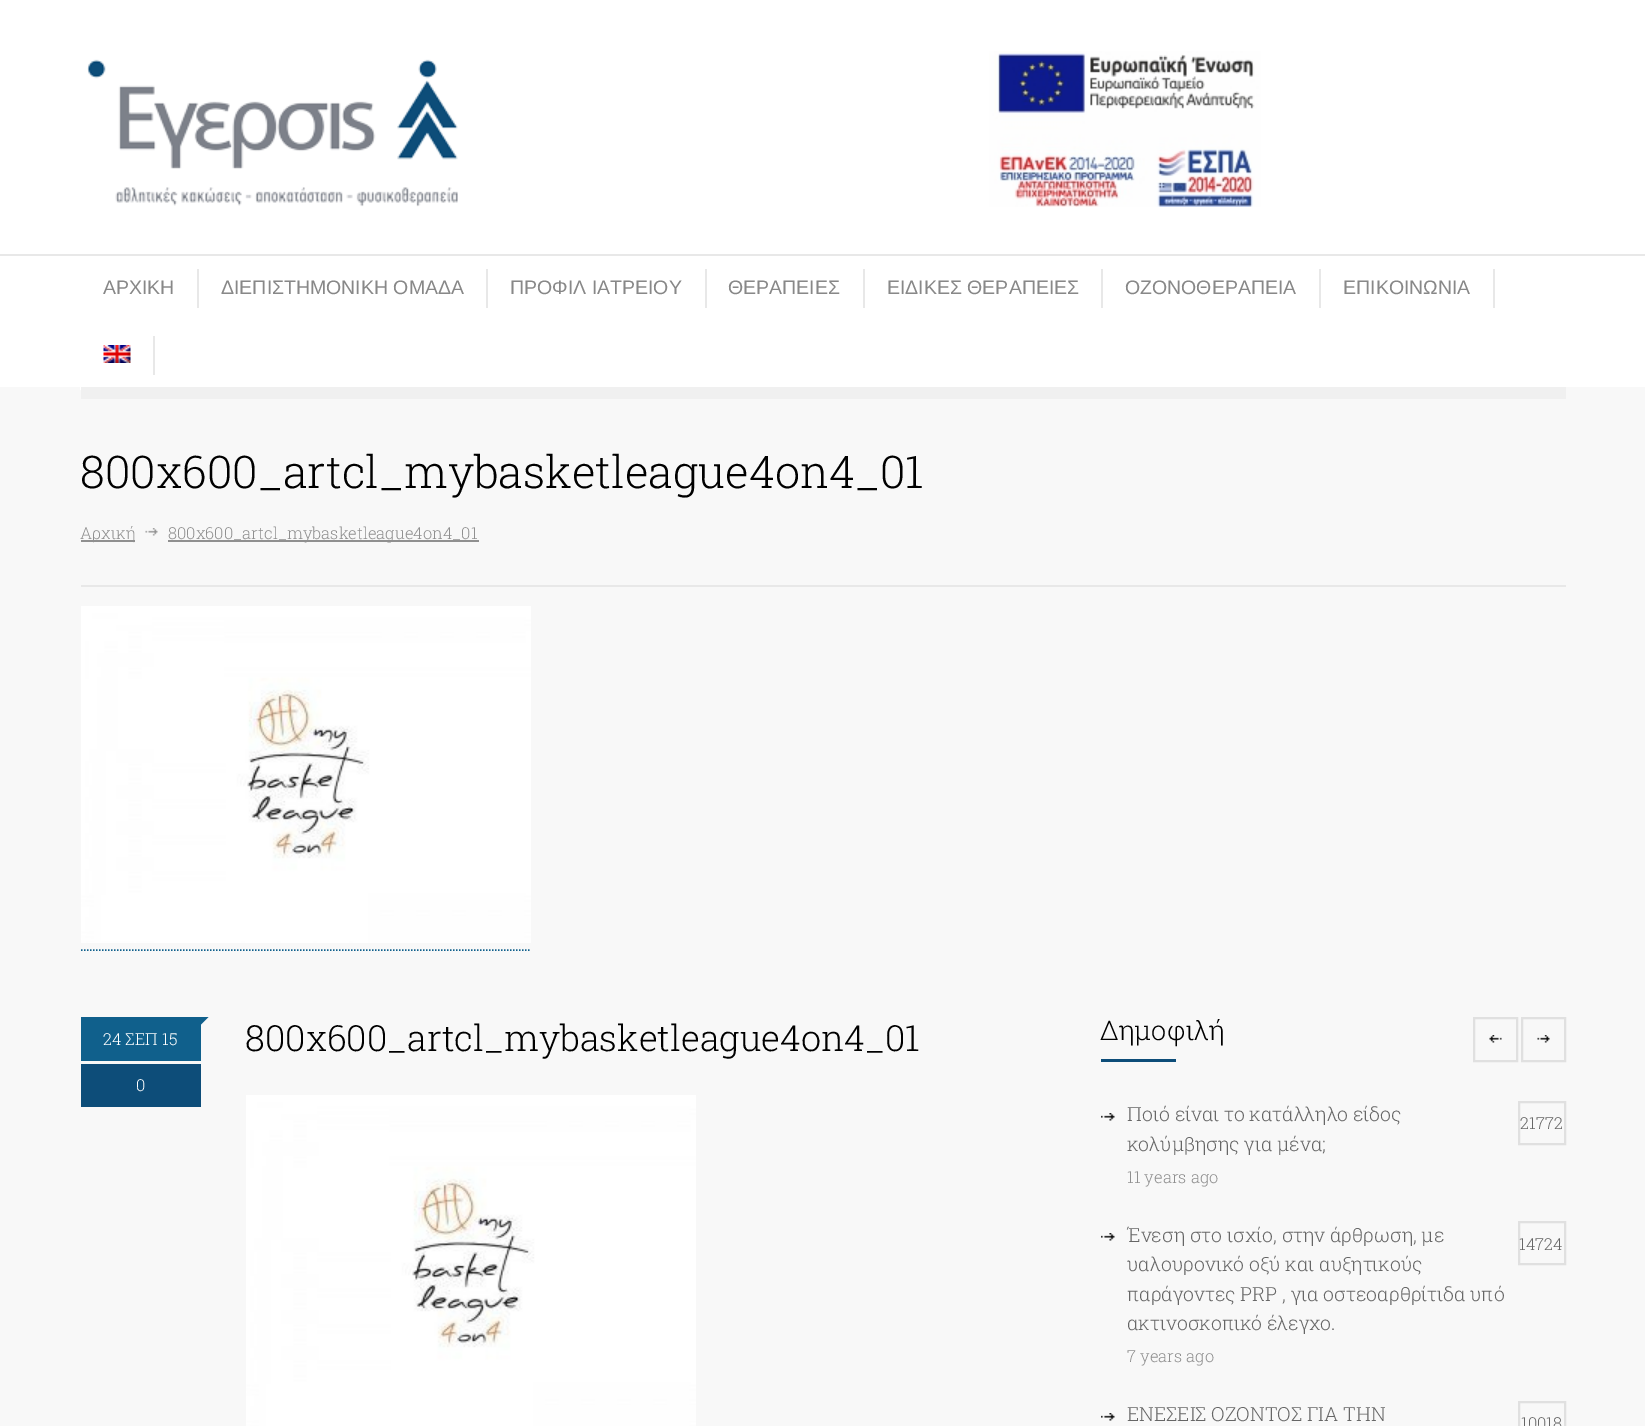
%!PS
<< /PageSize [1645 1426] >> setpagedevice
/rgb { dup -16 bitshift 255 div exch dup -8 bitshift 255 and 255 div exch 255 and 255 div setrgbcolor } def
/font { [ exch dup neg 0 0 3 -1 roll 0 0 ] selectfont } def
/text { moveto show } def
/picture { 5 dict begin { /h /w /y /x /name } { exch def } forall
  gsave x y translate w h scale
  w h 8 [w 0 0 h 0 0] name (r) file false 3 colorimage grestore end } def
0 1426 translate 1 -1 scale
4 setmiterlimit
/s1 { /LiberationSans-Regular 19.5 font 16#888888 rgb } def
/s2 { /RobotoSlab-Light 45 font 16#000000 rgb } def
/s3 { /RobotoSlab-Light 16.5 font 16#909090 rgb } def
/s4 { /RobotoSlab-Light 16.5 font 16#FFFFFF rgb } def
/s5 { /RobotoSlab-Light 36 font 16#000000 rgb } def
/s6 { /RobotoSlab-Light 27 font 16#000000 rgb } def
/s7 { /RobotoSlab-Light 19.5 font 16#666666 rgb } def
/s8 { /RobotoSlab-Light 16.5 font 16#666666 rgb } def
16#F8F8F8 rgb
0 0 1645 1426 rectfill
16#FFFFFF rgb
0 0 1645 254 rectfill
(pic1.raw) 87 59 371 148 picture
(pic2.raw) 989 51 272 156 picture
16#E8E8E8 rgb
0 254 1645 2 rectfill
16#FFFFFF rgb
0 256 1645 131 rectfill
s1
(ΑΡΧΙΚΗ) 103 294 text
16#E8E8E8 rgb
197 269 2 39 rectfill
s1
(ΔΙΕΠΙΣΤΗΜΟΝΙΚΗ ΟΜΑΔΑ) 221 294 text
16#E8E8E8 rgb
486 269 2 39 rectfill
s1
(ΠΡΟΦΙΛ ΙΑΤΡΕΙΟΥ) 510 294 text
16#E8E8E8 rgb
705 269 2 39 rectfill
s1
(ΘΕΡΑΠΕΙΕΣ) 728 294 text
16#E8E8E8 rgb
863 269 2 39 rectfill
s1
(ΕΙΔΙΚΕΣ ΘΕΡΑΠΕΙΕΣ) 887 294 text
16#E8E8E8 rgb
1101 269 2 39 rectfill
s1
(ΟΖΟΝΟΘΕΡΑΠΕΙΑ) 1125 294 text
16#E8E8E8 rgb
1319 269 2 39 rectfill
s1
(ΕΠΙΚΟΙΝΩΝΙΑ) 1343 294 text
16#E8E8E8 rgb
1493 269 2 39 rectfill
16#FFFFFF rgb
2 setlinewidth
81 322 73 67 rectstroke
(pic3.raw) 103 345 28 18 picture
16#E8E8E8 rgb
153 336 2 39 rectfill
16#F0F0F0 rgb
81 387 1485 12 rectfill
16#E8E8E8 rgb
81 585 1485 2 rectfill
s2
(800x600_artcl_mybasketleague4on4_01) 80 488 text
16#909090 rgb
81 540 54 2 rectfill
s3
(Αρχική) 80 539 text
(pic4.raw) 145 528 13 8 picture
168 540 311 2 rectfill
(800x600_artcl_mybasketleague4on4_01) 168 539 text
(pic5.raw) 81 606 450 337 picture
16#10608C rgb
1.5 setlinewidth
[1.5 1.5] 0 setdash
81 950 moveto 531 950 lineto stroke
201 1017 moveto 208.5 1017 lineto 201 1024.5 lineto closepath fill
81 1017 120 44 rectfill
s4
(24 ΣΕΠ 15) 103 1045 text
16#0D4D79 rgb
81 1064 120 43 rectfill
s4
(0) 136 1091 text
s5
(800x600_artcl_mybasketleague4on4_01) 245 1051 text
(pic6.raw) 246 1095 450 331 picture
s6
(Δημοφιλή) 1100 1040 text
16#0D4D79 rgb
1101 1059 75 3 rectfill
(pic7.raw) 1489 1035 13 8 picture
16#E0E0E0 rgb
2 setlinewidth
[] 0 setdash
1474 1018 43 43 rectstroke
(pic8.raw) 1537 1035 13 8 picture
1522 1018 43 43 rectstroke
(pic9.raw) 1101 1113 14 8 picture
s7
(Ποιό είναι το κατάλληλο είδος) 1127 1121 text
(κολύμβησης για μένα;) 1127 1151 text
16#E0E0E0 rgb
1519 1102 46 42 rectstroke
s8
(21772) 1520 1129 text
s3
(11 years ago) 1127 1183 text
(pic9.raw) 1101 1233 14 8 picture
s7
(Ένεση στο ισχίο, στην άρθρωση, με) 1127 1242 text
(υαλουρονικό οξύ και αυξητικούς) 1127 1271 text
(παράγοντες PRP , για οστεοαρθρίτιδα υπό) 1127 1301 text
(ακτινοσκοπικό έλεγχο.) 1127 1330 text
16#E0E0E0 rgb
1519 1222 46 42 rectstroke
s8
(14724) 1519 1250 text
s3
(7 years ago) 1127 1362 text
(pic9.raw) 1101 1413 14 8 picture
s7
(ΕΝΕΣΕΙΣ ΟΖΟΝΤΟΣ ΓΙΑ ΤΗΝ) 1127 1421 text
16#E0E0E0 rgb
1519 1402 46 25 rectstroke
s8
(10018) 1521 1429 text
showpage
